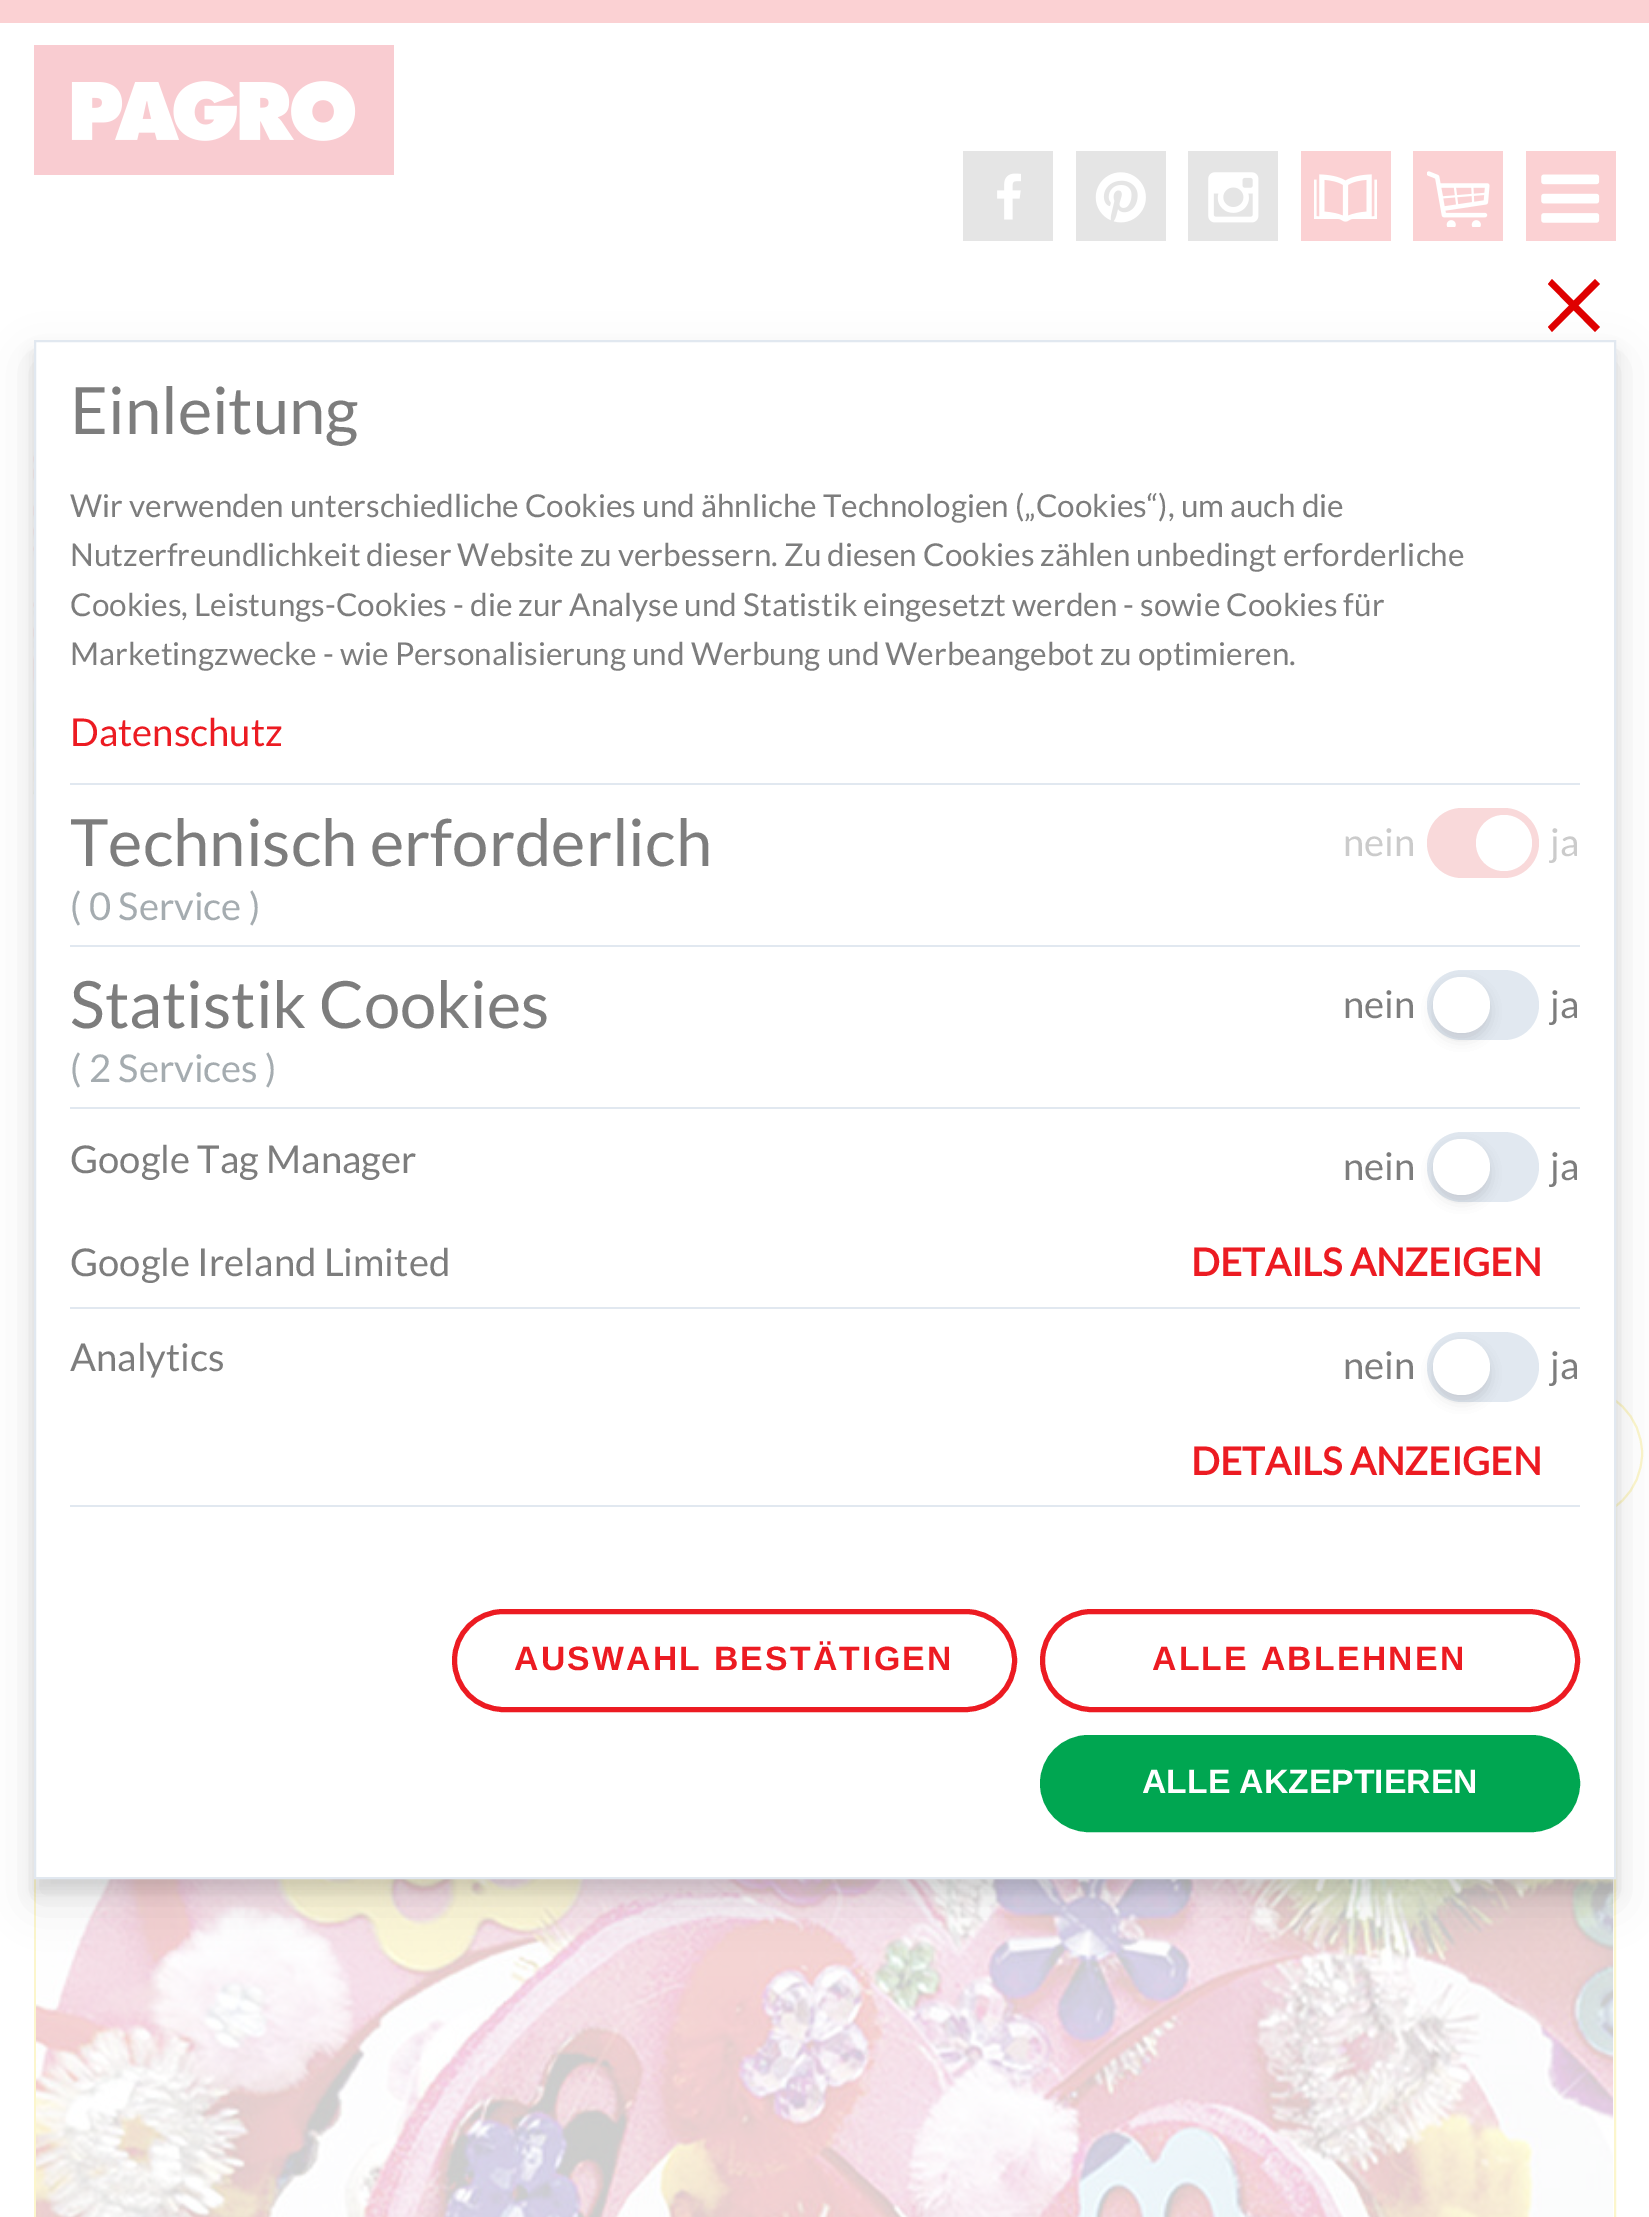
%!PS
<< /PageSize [1649 2217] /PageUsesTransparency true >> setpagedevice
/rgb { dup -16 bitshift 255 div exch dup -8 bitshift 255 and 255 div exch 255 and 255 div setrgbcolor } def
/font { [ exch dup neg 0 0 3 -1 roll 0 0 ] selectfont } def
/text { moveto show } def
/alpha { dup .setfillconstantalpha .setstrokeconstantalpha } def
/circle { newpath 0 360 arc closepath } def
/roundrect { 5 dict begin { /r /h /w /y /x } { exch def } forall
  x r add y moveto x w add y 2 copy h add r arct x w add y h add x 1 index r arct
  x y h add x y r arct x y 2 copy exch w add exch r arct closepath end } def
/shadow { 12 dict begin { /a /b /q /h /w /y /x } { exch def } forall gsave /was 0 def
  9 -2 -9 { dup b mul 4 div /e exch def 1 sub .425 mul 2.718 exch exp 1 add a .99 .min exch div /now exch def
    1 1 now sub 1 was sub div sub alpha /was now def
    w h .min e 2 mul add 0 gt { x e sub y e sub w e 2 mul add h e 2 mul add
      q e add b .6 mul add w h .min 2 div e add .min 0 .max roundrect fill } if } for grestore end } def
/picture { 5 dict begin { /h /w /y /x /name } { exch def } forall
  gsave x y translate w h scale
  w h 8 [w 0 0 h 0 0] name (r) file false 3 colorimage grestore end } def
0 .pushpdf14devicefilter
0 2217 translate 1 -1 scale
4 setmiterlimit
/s1 { /Lato-Regular 65.25 font 16#7D7D7D rgb } def
/s2 { /Lato-Regular 31.5 font 16#7D7D7D rgb } def
/s3 { /Lato-Regular 38.25 font 16#EC1B22 rgb } def
/s4 { /Lato-Regular 38.25 font 16#A5ACB0 rgb } def
/s5 { /Lato-Regular 38.25 font 16#CBCBCB rgb } def
/s6 { /Lato-Regular 38.25 font 16#7D7D7D rgb } def
/s7 { /Lato-Bold 38.25 font 16#EC1B22 rgb } def
/s8 { /LiberationSans-Bold 33.75 font 16#FFFFFF rgb } def
16#FFFFFF rgb
0 0 1649 2217 rectfill
16#FBD1D3 rgb
0 0 1649 23 rectfill
(pic1.raw) 34 45 360 130 picture
16#E5E5E5 rgb
963 151 90 90 rectfill
(pic2.raw) 997 173 24 47 picture
1076 151 90 90 rectfill
(pic3.raw) 1095 172 51 51 picture
1188 151 90 90 rectfill
(pic4.raw) 1208 172 51 51 picture
16#FBD1D3 rgb
1301 151 90 90 rectfill
(pic5.raw) 1314 174 63 48 picture
1413 151 90 90 rectfill
(pic6.raw) 1427 171 63 56 picture
1526 151 90 90 rectfill
(pic7.raw) 1541 174 59 49 picture
(pic8.raw) 33 373 1 422 picture
16#FCF6CC rgb
2 setlinewidth
35 1428 1580 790 rectstroke
16#FFFFFF rgb
1575.5 1453.5 66.5 circle gsave fill grestore
16#FCF6CC rgb
stroke
(pic9.raw) 36 1879 1578 338 picture
16#000000 rgb
34 353 1582 1539 0 7 0.1 shadow
34 362 1582 1539 0 22.5 0.1 shadow
16#FFFFFF rgb
35 341 moveto 1615 341 lineto 1615 1878 lineto 35 1878 lineto closepath gsave fill grestore
16#E1E8F0 rgb
stroke
16#DF0000 rgb
1595 279 moveto 1600 284 lineto 1552 332 lineto 1548 327 lineto closepath fill
1548 284 moveto 1552 279 lineto 1600 327 lineto 1595 332 lineto closepath fill
s1
(Einleitung) 70 434 text
s2
(Wir verwenden unterschiedliche Cookies und ähnliche Technologien \(„Cookies“\), um auch die) 70 517 text
(Nutzerfreundlichkeit dieser Website zu verbessern. Zu diesen Cookies zählen unbedingt erforderliche) 70 566 text
(Cookies, Leistungs-Cookies - die zur Analyse und Statistik eingesetzt werden - sowie Cookies für) 70 616 text
(Marketingzwecke - wie Personalisierung und Werbung und Werbeangebot zu optimieren.) 70 665 text
s3
(Datenschutz) 70 746 text
16#E1E8F0 rgb
70 783 1510 2 rectfill
70 945 1510 2 rectfill
s1
(Technisch erforderlich) 70 866 text
s4
(\( 0 Service \)) 70 920 text
s5
(nein) 1343 856 text
16#F9D9DA rgb
1427 808 112 70 35 roundrect fill
16#FFFFFF rgb
1504 843 28 circle fill
s5
(ja) 1550 856 text
16#E1E8F0 rgb
70 1505 1510 2 rectfill
s1
(Statistik Cookies) 70 1028 text
s4
(\( 2 Services \)) 70 1082 text
s6
(nein) 1343 1018 text
16#E1E8F0 rgb
1427 970 112 70 35 roundrect fill
16#000000 rgb
1433 983 57 57 28.5 7 0.05 shadow
1433 983 57 57 28.5 7 0.05 shadow
16#FFFFFF rgb
1433 977 57 56 28 roundrect fill
s6
(ja) 1550 1018 text
16#E1E8F0 rgb
70 1107 1510 2 rectfill
s6
(Google Tag Manager) 70 1173 text
(nein) 1343 1180 text
16#E1E8F0 rgb
1427 1132 112 70 35 roundrect fill
16#000000 rgb
1433 1145 57 57 28.5 7 0.05 shadow
1433 1145 57 57 28.5 7 0.05 shadow
16#FFFFFF rgb
1433 1139 57 56 28 roundrect fill
s6
(ja) 1550 1180 text
(Google Ireland Limited) 70 1276 text
s7
(DETAILS ANZEIGEN) 1191 1276 text
16#E1E8F0 rgb
70 1307 1510 2 rectfill
s6
(Analytics) 70 1371 text
(nein) 1343 1379 text
16#E1E8F0 rgb
1427 1332 112 70 35 roundrect fill
16#000000 rgb
1433 1346 57 56 28 7 0.05 shadow
1433 1346 57 56 28 7 0.05 shadow
16#FFFFFF rgb
1433 1339 57 56 28 roundrect fill
s6
(ja) 1550 1379 text
s7
(DETAILS ANZEIGEN) 1191 1475 text
5 setlinewidth
454.5 1611.5 560 98 49 roundrect stroke
/LiberationSans-Bold 33.75 font
514 1670 moveto 2.25 0 (AUSWAHL BESTÄTIGEN) ashow
1042.5 1611.5 535 98 49 roundrect stroke
1152 1670 moveto 2.25 0 (ALLE ABLEHNEN) ashow
16#00A651 rgb
1041 1736 538 95 47.5 roundrect gsave fill grestore
2 setlinewidth
stroke
s8
(ALLE AKZEPTIEREN) 1142 1793 text
.poppdf14devicefilter showpage
